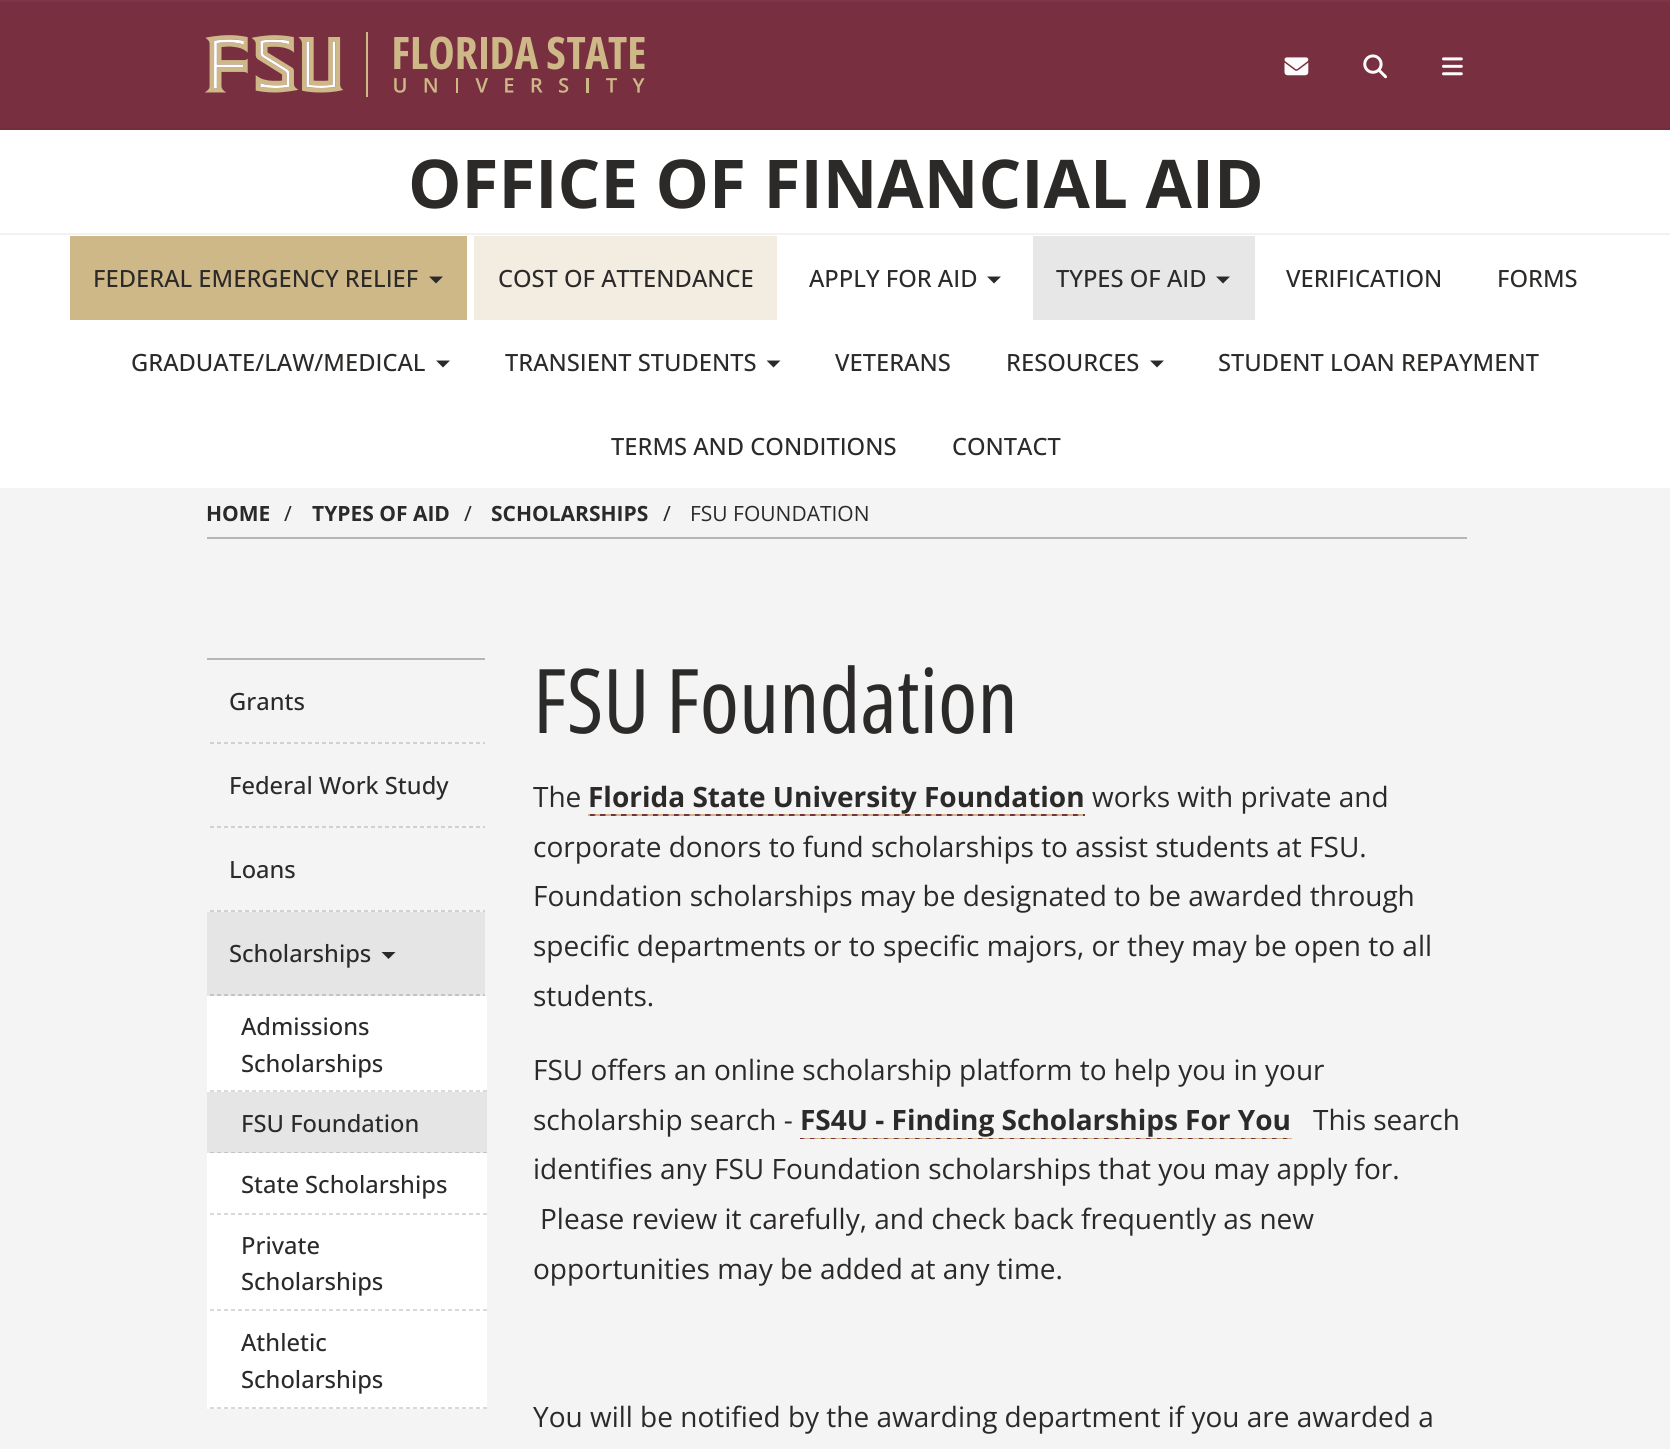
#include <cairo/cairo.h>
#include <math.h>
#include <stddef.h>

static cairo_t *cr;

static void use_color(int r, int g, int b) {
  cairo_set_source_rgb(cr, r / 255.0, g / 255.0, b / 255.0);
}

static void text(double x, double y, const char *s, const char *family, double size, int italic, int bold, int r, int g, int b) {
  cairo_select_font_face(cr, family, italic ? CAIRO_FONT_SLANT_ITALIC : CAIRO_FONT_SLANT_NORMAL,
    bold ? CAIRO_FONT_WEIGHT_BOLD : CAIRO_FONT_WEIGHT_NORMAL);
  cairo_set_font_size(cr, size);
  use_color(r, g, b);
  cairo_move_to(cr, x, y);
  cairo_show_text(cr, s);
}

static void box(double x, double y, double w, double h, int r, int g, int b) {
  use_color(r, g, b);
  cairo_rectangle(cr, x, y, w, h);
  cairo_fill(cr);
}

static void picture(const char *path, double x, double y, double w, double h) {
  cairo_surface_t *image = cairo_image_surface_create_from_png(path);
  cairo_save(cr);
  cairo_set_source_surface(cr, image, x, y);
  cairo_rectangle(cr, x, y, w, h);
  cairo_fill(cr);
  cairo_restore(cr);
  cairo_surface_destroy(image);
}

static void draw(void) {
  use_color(120, 47, 64);
  cairo_paint(cr);
  box(0, 0, 1670, 2, 124, 53, 70);
  box(0, 128, 1670, 2, 114, 45, 61);
  picture("img_01.png", 204, 32, 441, 65);
  picture("img_02.png", 1284, 57, 25, 19);
  picture("img_03.png", 1363, 54, 24, 25);
  picture("img_04.png", 1442, 57, 21, 19);
  box(0, 130, 1670, 103, 255, 255, 255);
  box(0, 233, 1670, 2, 243, 242, 242);
  box(0, 235, 1670, 253, 255, 255, 255);
  box(70, 236, 397, 84, 206, 184, 136);
  use_color(44, 42, 41);
  cairo_new_path(cr);
  cairo_move_to(cr, 429, 276.5);
  cairo_line_to(cr, 443, 276.5);
  cairo_line_to(cr, 436, 283.5);
  cairo_close_path(cr);
  cairo_fill(cr);
  box(474, 236, 303, 84, 243, 237, 225);
  use_color(44, 42, 41);
  cairo_new_path(cr);
  cairo_move_to(cr, 987, 276.5);
  cairo_line_to(cr, 1001, 276.5);
  cairo_line_to(cr, 994, 283.5);
  cairo_close_path(cr);
  cairo_fill(cr);
  box(1033, 236, 222, 84, 231, 231, 231);
  use_color(44, 42, 41);
  cairo_new_path(cr);
  cairo_move_to(cr, 1216, 276.5);
  cairo_line_to(cr, 1230, 276.5);
  cairo_line_to(cr, 1223, 283.5);
  cairo_close_path(cr);
  cairo_fill(cr);
  cairo_new_path(cr);
  cairo_move_to(cr, 436, 360.5);
  cairo_line_to(cr, 450, 360.5);
  cairo_line_to(cr, 443, 367.5);
  cairo_close_path(cr);
  cairo_fill(cr);
  cairo_new_path(cr);
  cairo_move_to(cr, 766.5, 360.5);
  cairo_line_to(cr, 780.5, 360.5);
  cairo_line_to(cr, 773.5, 367.5);
  cairo_close_path(cr);
  cairo_fill(cr);
  cairo_new_path(cr);
  cairo_move_to(cr, 1150, 360.5);
  cairo_line_to(cr, 1164, 360.5);
  cairo_line_to(cr, 1157, 367.5);
  cairo_close_path(cr);
  cairo_fill(cr);
  box(0, 488, 1670, 961, 244, 244, 244);
  box(207, 537, 1260, 2, 181, 181, 180);
  box(207, 658, 278, 2, 181, 181, 180);
  picture("img_05.png", 210, 742, 275, 2);
  picture("img_05.png", 210, 826, 275, 2);
  picture("img_05.png", 210, 910, 275, 2);
  box(207, 912, 278, 84, 229, 229, 229);
  picture("img_06.png", 210, 994, 275, 2);
  use_color(44, 42, 41);
  cairo_new_path(cr);
  cairo_move_to(cr, 381.5, 952);
  cairo_line_to(cr, 395.5, 952);
  cairo_line_to(cr, 388.5, 959);
  cairo_close_path(cr);
  cairo_fill(cr);
  box(207, 996, 280, 96, 255, 255, 255);
  picture("img_07.png", 210, 1090, 277, 2);
  box(207, 1092, 280, 61, 229, 229, 229);
  picture("img_08.png", 210, 1152, 277, 1);
  box(207, 1153, 280, 256, 255, 255, 255);
  picture("img_07.png", 210, 1213, 277, 2);
  picture("img_07.png", 210, 1309, 277, 2);
  picture("img_07.png", 210, 1407, 277, 2);
  picture("img_09.png", 588, 814, 497, 2);
  picture("img_10.png", 800, 1138, 492, 1);
  text(408, 208, "OFFICE OF FINANCIAL AID", "Open Sans", 67.25, 0, 1, 44, 42, 41);
  text(93, 287, "FEDERAL EMERGENCY RELIEF", "Open Sans Medium", 23.75, 0, 0, 44, 42, 41);
  text(498, 287, "COST OF ATTENDANCE", "Open Sans Medium", 23.75, 0, 0, 44, 42, 41);
  text(809, 287, "APPLY FOR AID", "Open Sans Medium", 23.75, 0, 0, 44, 42, 41);
  text(1056, 287, "TYPES OF AID", "Open Sans Medium", 23.75, 0, 0, 44, 42, 41);
  text(1286, 287, "VERIFICATION", "Open Sans Medium", 23.75, 0, 0, 44, 42, 41);
  text(1497, 287, "FORMS", "Open Sans Medium", 23.75, 0, 0, 44, 42, 41);
  text(131, 371, "GRADUATE/LAW/MEDICAL", "Open Sans Medium", 23.75, 0, 0, 44, 42, 41);
  text(505, 371, "TRANSIENT STUDENTS", "Open Sans Medium", 23.75, 0, 0, 44, 42, 41);
  text(835, 371, "VETERANS", "Open Sans Medium", 23.75, 0, 0, 44, 42, 41);
  text(1006, 371, "RESOURCES", "Open Sans Medium", 23.75, 0, 0, 44, 42, 41);
  text(1218, 371, "STUDENT LOAN REPAYMENT", "Open Sans Medium", 23.75, 0, 0, 44, 42, 41);
  text(611, 455, "TERMS AND CONDITIONS", "Open Sans Medium", 23.75, 0, 0, 44, 42, 41);
  text(952, 455, "CONTACT", "Open Sans Medium", 23.75, 0, 0, 44, 42, 41);
  text(206, 521, "HOME", "Open Sans", 21, 0, 1, 44, 42, 41);
  text(284, 521, "/", "Open Sans", 21, 0, 0, 44, 42, 41);
  text(312, 521, "TYPES OF AID", "Open Sans", 21, 0, 1, 44, 42, 41);
  text(464, 521, "/", "Open Sans", 21, 0, 0, 44, 42, 41);
  text(491, 521, "SCHOLARSHIPS", "Open Sans", 21, 0, 1, 44, 42, 41);
  text(663, 521, "/", "Open Sans", 21, 0, 0, 44, 42, 41);
  text(690, 521, "FSU FOUNDATION", "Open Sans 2", 21, 0, 0, 44, 42, 41);
  text(229, 710, "Grants", "Open Sans Medium", 23.75, 0, 0, 44, 42, 41);
  text(229, 794, "Federal Work Study", "Open Sans Medium", 23.75, 0, 0, 44, 42, 41);
  text(229, 878, "Loans", "Open Sans Medium", 23.75, 0, 0, 44, 42, 41);
  text(229, 962, "Scholarships", "Open Sans Medium", 23.75, 0, 0, 44, 42, 41);
  text(241, 1035, "Admissions", "Open Sans Medium", 23.75, 0, 0, 44, 42, 41);
  text(241, 1072, "Scholarships", "Open Sans Medium", 23.75, 0, 0, 44, 42, 41);
  text(241, 1132, "FSU Foundation", "Open Sans Medium", 23.75, 0, 0, 44, 42, 41);
  text(241, 1193, "State Scholarships", "Open Sans Medium", 23.75, 0, 0, 44, 42, 41);
  text(241, 1254, "Private", "Open Sans Medium", 23.75, 0, 0, 44, 42, 41);
  text(241, 1290, "Scholarships", "Open Sans Medium", 23.75, 0, 0, 44, 42, 41);
  text(241, 1351, "Athletic", "Open Sans Medium", 23.75, 0, 0, 44, 42, 41);
  text(241, 1388, "Scholarships", "Open Sans Medium", 23.75, 0, 0, 44, 42, 41);
  text(533, 733, "FSU Foundation", "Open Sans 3", 89.25, 0, 0, 44, 42, 41);
  text(533, 807, "The", "Open Sans 2", 28, 0, 0, 44, 42, 41);
  text(588, 807, "Florida State University Foundation", "Open Sans", 28, 0, 1, 44, 42, 41);
  text(1092, 807, "works with private and", "Open Sans 2", 28, 0, 0, 44, 42, 41);
  text(533, 857, "corporate donors to fund scholarships to assist students at FSU.", "Open Sans 2", 28, 0, 0, 44, 42, 41);
  text(533, 906, "Foundation scholarships may be designated to be awarded through", "Open Sans 2", 28, 0, 0, 44, 42, 41);
  text(533, 956, "specific departments or to specific majors, or they may be open to all", "Open Sans 2", 28, 0, 0, 44, 42, 41);
  text(533, 1006, "students.", "Open Sans 2", 28, 0, 0, 44, 42, 41);
  text(533, 1080, "FSU offers an online scholarship platform to help you in your", "Open Sans 2", 28, 0, 0, 44, 42, 41);
  text(533, 1130, "scholarship search -", "Open Sans 2", 28, 0, 0, 44, 42, 41);
  text(800, 1130, "FS4U - Finding Scholarships For You", "Open Sans", 28, 0, 1, 44, 42, 41);
  text(1313, 1130, "This search", "Open Sans 2", 28, 0, 0, 44, 42, 41);
  text(533, 1179, "identifies any FSU Foundation scholarships that you may apply for.", "Open Sans 2", 28, 0, 0, 44, 42, 41);
  text(540, 1229, "Please review it carefully, and check back frequently as new", "Open Sans 2", 28, 0, 0, 44, 42, 41);
  text(533, 1279, "opportunities may be added at any time.", "Open Sans 2", 28, 0, 0, 44, 42, 41);
  text(533, 1427, "You will be notified by the awarding department if you are awarded a", "Open Sans 2", 28, 0, 0, 44, 42, 41);
}

int main(void) {
  cairo_surface_t *surface = cairo_image_surface_create(CAIRO_FORMAT_RGB24, 1670, 1449);
  cr = cairo_create(surface);
  cairo_font_options_t *options = cairo_font_options_create();
  cairo_font_options_set_hint_metrics(options, CAIRO_HINT_METRICS_OFF);
  cairo_font_options_set_hint_style(options, CAIRO_HINT_STYLE_NONE);
  cairo_set_font_options(cr, options);
  cairo_set_miter_limit(cr, 4);
  draw();
  cairo_surface_write_to_png(surface, "out.png");
  cairo_font_options_destroy(options);
  cairo_destroy(cr);
  cairo_surface_destroy(surface);
  return 0;
}
